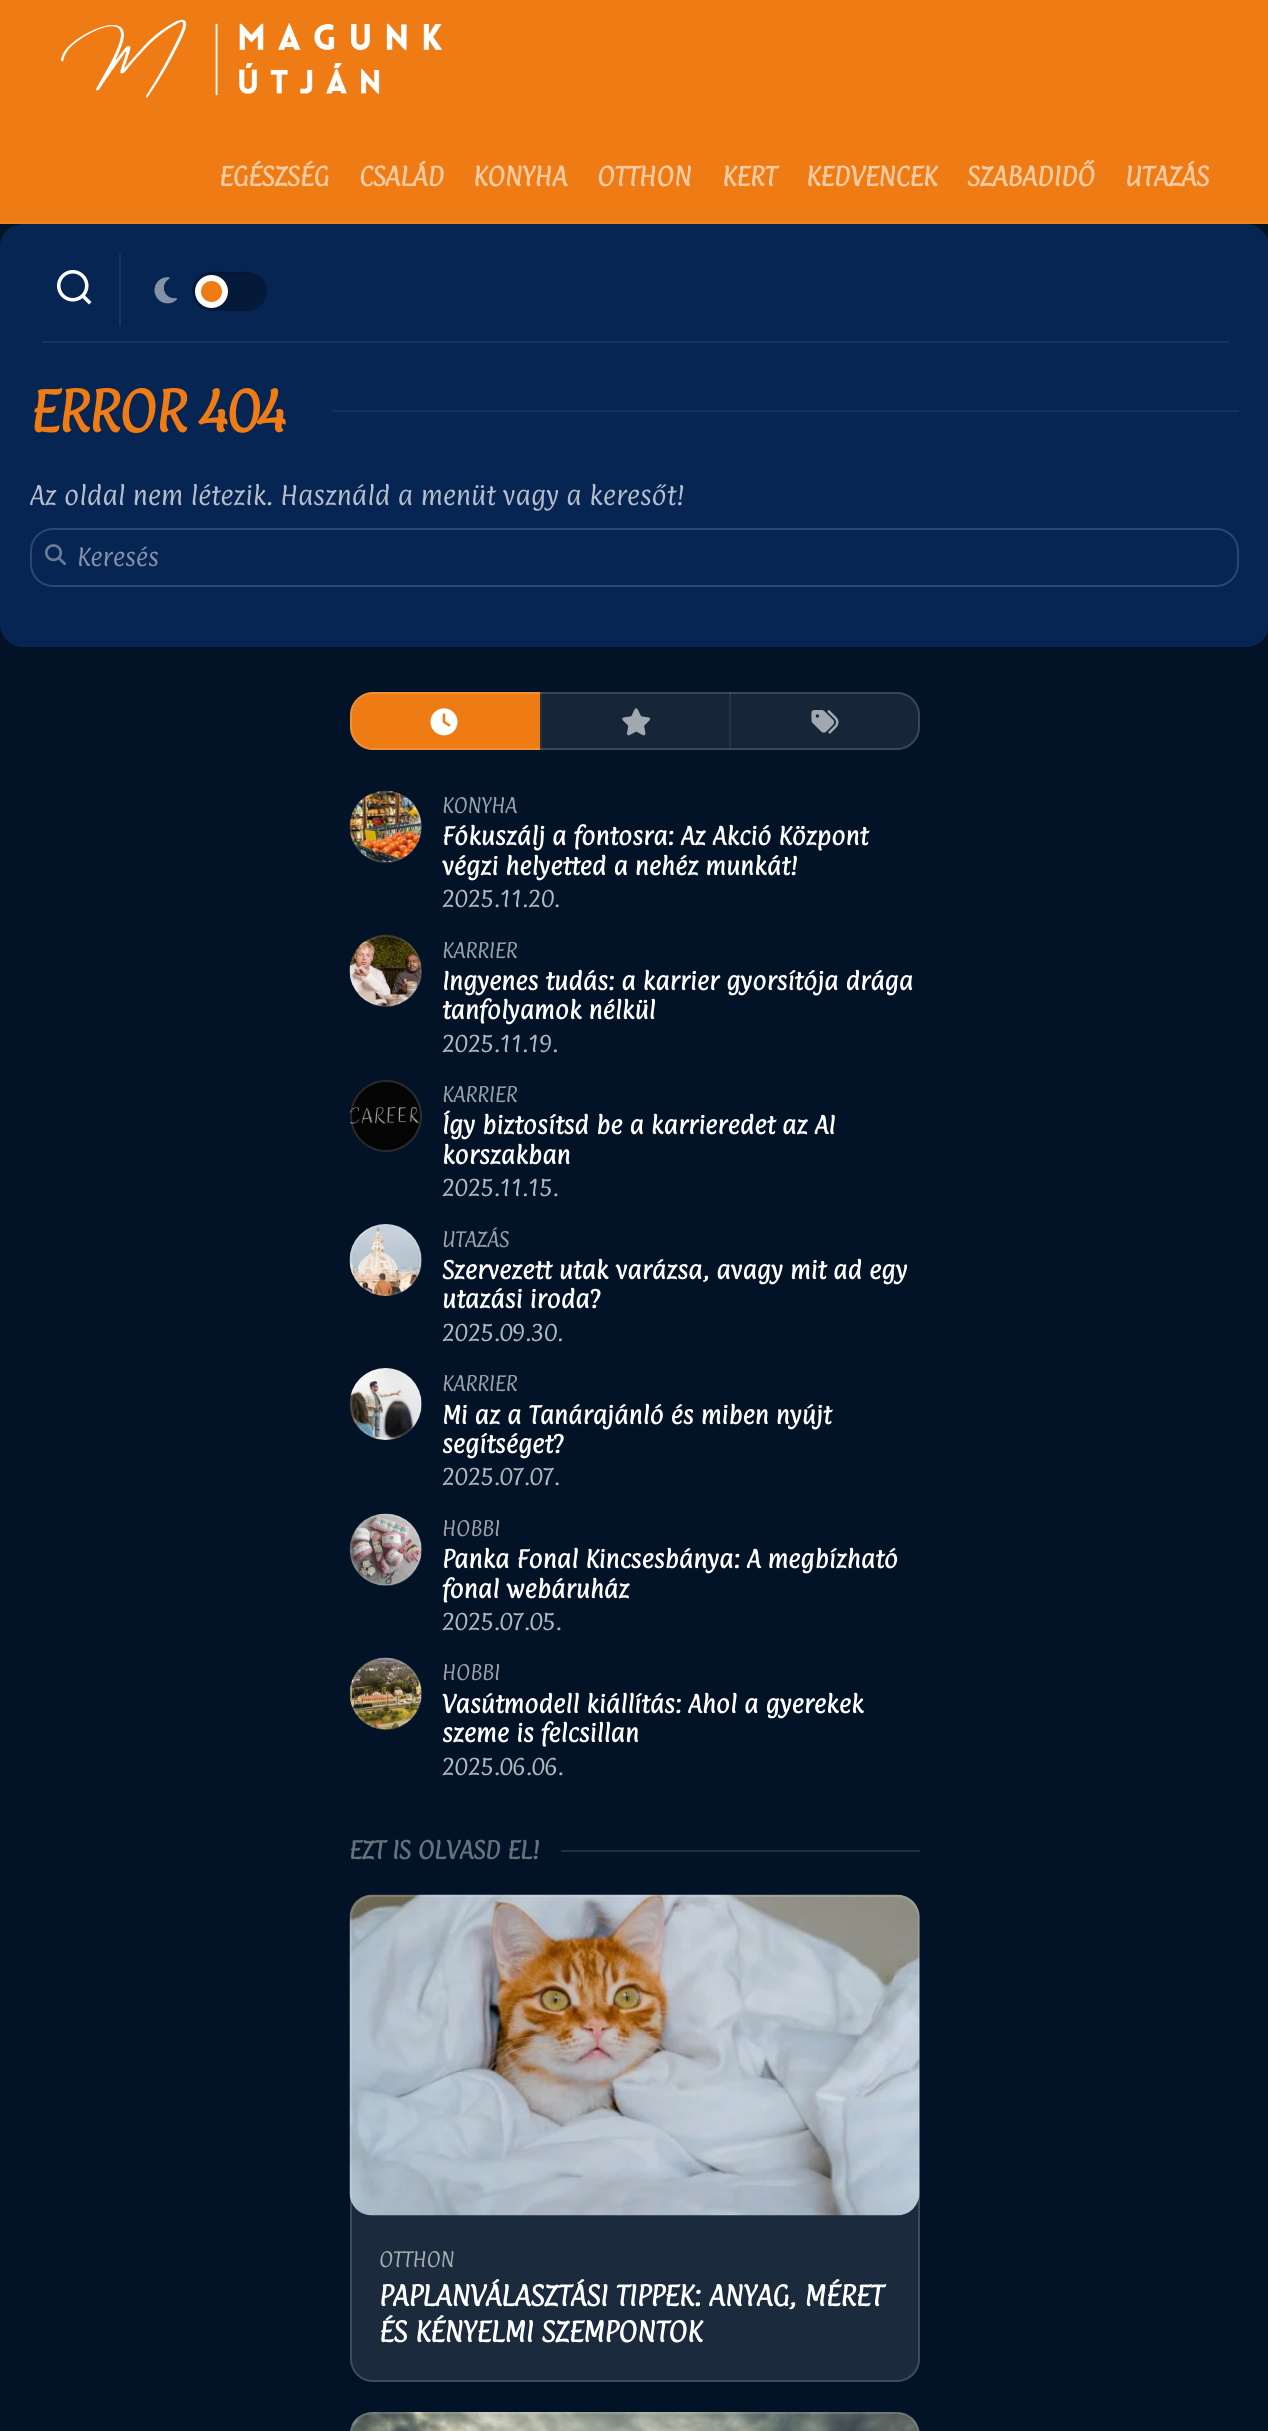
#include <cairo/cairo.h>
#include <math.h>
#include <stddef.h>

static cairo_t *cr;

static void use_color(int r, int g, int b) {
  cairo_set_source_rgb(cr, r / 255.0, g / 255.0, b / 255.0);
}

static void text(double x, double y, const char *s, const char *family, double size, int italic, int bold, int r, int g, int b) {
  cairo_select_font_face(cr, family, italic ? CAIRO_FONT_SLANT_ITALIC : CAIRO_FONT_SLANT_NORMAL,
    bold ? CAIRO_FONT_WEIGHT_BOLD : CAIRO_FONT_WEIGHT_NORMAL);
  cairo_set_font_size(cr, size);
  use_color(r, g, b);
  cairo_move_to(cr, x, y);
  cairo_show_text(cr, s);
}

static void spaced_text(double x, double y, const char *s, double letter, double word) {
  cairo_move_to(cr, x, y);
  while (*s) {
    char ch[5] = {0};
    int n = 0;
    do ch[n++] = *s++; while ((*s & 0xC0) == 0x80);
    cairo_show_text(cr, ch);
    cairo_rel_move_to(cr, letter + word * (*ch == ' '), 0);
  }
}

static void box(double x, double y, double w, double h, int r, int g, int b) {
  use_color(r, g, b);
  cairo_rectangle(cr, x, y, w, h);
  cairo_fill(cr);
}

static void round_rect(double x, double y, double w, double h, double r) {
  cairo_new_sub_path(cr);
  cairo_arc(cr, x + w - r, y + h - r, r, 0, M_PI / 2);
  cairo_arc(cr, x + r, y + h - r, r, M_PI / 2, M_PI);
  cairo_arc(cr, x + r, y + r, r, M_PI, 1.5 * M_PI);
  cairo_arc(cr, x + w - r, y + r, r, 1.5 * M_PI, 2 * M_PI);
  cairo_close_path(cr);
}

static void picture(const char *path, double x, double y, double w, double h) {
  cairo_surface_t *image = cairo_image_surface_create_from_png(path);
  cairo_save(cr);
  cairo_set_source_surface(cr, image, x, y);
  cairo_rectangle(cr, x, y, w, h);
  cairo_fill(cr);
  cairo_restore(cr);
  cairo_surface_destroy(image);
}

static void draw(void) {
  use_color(2, 19, 39);
  cairo_paint(cr);
  box(0, 0, 1268, 222, 238, 123, 20);
  box(0, 222, 1268, 2, 239, 131, 34);
  picture("img_01.png", 60, 19, 383, 79);
  use_color(7, 37, 83);
  round_rect(0, 224, 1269, 423, 23);
  cairo_fill(cr);
  box(42, 341, 1187, 2, 22, 50, 93);
  box(119, 254, 2, 72, 22, 50, 93);
  picture("img_02.png", 57, 270, 35, 35);
  picture("img_03.png", 154, 277, 23, 27);
  use_color(5, 26, 58);
  round_rect(192, 272, 75, 39, 19.5);
  cairo_fill(cr);
  cairo_set_source_rgba(cr, 0, 0, 0, 0.2);
  cairo_new_path(cr);
  cairo_move_to(cr, 212, 273);
  cairo_line_to(cr, 248, 273);
  cairo_curve_to(cr, 258, 273, 267, 282, 267, 292);
  cairo_curve_to(cr, 267, 288, 266, 284, 264, 281);
  cairo_curve_to(cr, 256, 269, 241, 272, 230, 272);
  cairo_curve_to(cr, 218, 272, 203, 269, 195, 281);
  cairo_curve_to(cr, 193, 284, 192, 288, 192, 292);
  cairo_curve_to(cr, 192, 282, 201, 273, 212, 273);
  cairo_close_path(cr);
  cairo_fill(cr);
  use_color(238, 123, 20);
  cairo_arc(cr, 211.5, 291.5, 13.5, 0, 2 * M_PI);
  cairo_fill_preserve(cr);
  use_color(255, 255, 255);
  cairo_set_line_width(cr, 6);
  cairo_stroke(cr);
  box(332, 410, 907, 2, 22, 50, 93);
  round_rect(31, 529, 1207, 57, 22);
  use_color(44, 70, 109);
  cairo_set_line_width(cr, 2);
  cairo_stroke(cr);
  picture("img_04.png", 45, 544, 21, 22);
  use_color(22, 38, 56);
  round_rect(350, 692, 570, 58, 23);
  cairo_fill(cr);
  use_color(238, 123, 20);
  cairo_new_path(cr);
  cairo_move_to(cr, 373, 692);
  cairo_line_to(cr, 540, 692);
  cairo_line_to(cr, 540, 750);
  cairo_line_to(cr, 373, 750);
  cairo_curve_to(cr, 360.5, 750, 350, 739.5, 350, 727);
  cairo_line_to(cr, 350, 715);
  cairo_curve_to(cr, 350, 702.5, 360.5, 692, 373, 692);
  cairo_close_path(cr);
  cairo_fill(cr);
  picture("img_05.png", 430, 708, 28, 28);
  box(540, 692, 2, 58, 36, 51, 68);
  picture("img_06.png", 622, 708, 29, 28);
  box(729, 692, 2, 58, 36, 51, 68);
  picture("img_07.png", 811, 710, 28, 24);
  round_rect(351, 693, 568, 56, 22);
  cairo_set_source_rgba(cr, 1, 1, 1, 0.15);
  cairo_stroke(cr);
  picture("img_08.png", 349, 790, 73, 73);
  cairo_arc(cr, 386, 827, 35, 0, 2 * M_PI);
  cairo_stroke(cr);
  picture("img_09.png", 349, 934, 73, 73);
  cairo_arc(cr, 386, 971, 35, 0, 2 * M_PI);
  cairo_stroke(cr);
  picture("img_10.png", 349, 1080, 73, 72);
  cairo_arc(cr, 386, 1116, 35, 0, 2 * M_PI);
  cairo_stroke(cr);
  picture("img_11.png", 349, 1224, 73, 72);
  cairo_arc(cr, 386, 1260, 35, 0, 2 * M_PI);
  cairo_stroke(cr);
  picture("img_12.png", 349, 1368, 73, 72);
  cairo_arc(cr, 386, 1404, 35, 0, 2 * M_PI);
  cairo_stroke(cr);
  picture("img_13.png", 349, 1513, 73, 73);
  cairo_arc(cr, 386, 1550, 35, 0, 2 * M_PI);
  cairo_stroke(cr);
  picture("img_14.png", 349, 1657, 73, 73);
  cairo_arc(cr, 386, 1694, 35, 0, 2 * M_PI);
  cairo_stroke(cr);
  box(561, 1850, 359, 2, 32, 47, 65);
  use_color(27, 43, 61);
  round_rect(350, 1895, 570, 487, 23);
  cairo_fill(cr);
  picture("img_15.png", 349, 1894, 571, 322);
  round_rect(351, 1896, 568, 485, 22);
  cairo_set_source_rgba(cr, 1, 1, 1, 0.15);
  cairo_stroke(cr);
  use_color(27, 43, 61);
  round_rect(350, 2412, 570, 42, 23);
  cairo_fill(cr);
  picture("img_16.png", 350, 2412, 569, 19);
  round_rect(351, 2413, 568, 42, 22);
  cairo_set_source_rgba(cr, 1, 1, 1, 0.15);
  cairo_stroke(cr);
  text(219, 186, "EGÉSZSÉG", "Paprika", 22.5, 0, 1, 248, 202, 161);
  text(359, 186, "CSALÁD", "Paprika", 22.5, 0, 1, 248, 202, 161);
  text(473, 186, "KONYHA", "Paprika", 22.5, 0, 1, 248, 202, 161);
  text(597, 186, "OTTHON", "Paprika", 22.5, 0, 1, 248, 202, 161);
  text(722, 186, "KERT", "Paprika", 22.5, 0, 1, 248, 202, 161);
  text(806, 186, "KEDVENCEK", "Paprika", 22.5, 0, 1, 248, 202, 161);
  text(967, 186, "SZABADIDŐ", "Paprika", 22.5, 0, 1, 248, 202, 161);
  text(1125, 186, "UTAZÁS", "Paprika", 22.5, 0, 1, 248, 202, 161);
  cairo_set_font_size(cr, 48);
  use_color(238, 123, 20);
  spaced_text(30, 432, "ERROR 404", -1, 0);
  text(30, 505, "Az oldal nem létezik. Használd a menüt vagy a keresőt!", "Paprika", 22.5, 0, 0, 181, 190, 203);
  text(77, 566, "Keresés", "Paprika", 21, 0, 0, 131, 146, 169);
  text(442, 813, "KONYHA", "Paprika", 18, 0, 0, 154, 161, 169);
  text(442, 845, "Fókuszálj a fontosra: Az Akció Központ", "Paprika", 21, 0, 1, 255, 255, 255);
  text(442, 875, "végzi helyetted a nehéz munkát!", "Paprika", 21, 0, 1, 255, 255, 255);
  text(442, 907, "2025.11.20.", "Paprika", 19.5, 0, 0, 179, 184, 190);
  text(442, 958, "KARRIER", "Paprika", 18, 0, 0, 154, 161, 169);
  text(442, 990, "Ingyenes tudás: a karrier gyorsítója drága", "Paprika", 21, 0, 1, 255, 255, 255);
  text(442, 1019, "tanfolyamok nélkül", "Paprika", 21, 0, 1, 255, 255, 255);
  text(442, 1052, "2025.11.19.", "Paprika", 19.5, 0, 0, 179, 184, 190);
  text(442, 1102, "KARRIER", "Paprika", 18, 0, 0, 154, 161, 169);
  text(442, 1134, "Így biztosítsd be a karrieredet az AI", "Paprika", 21, 0, 1, 255, 255, 255);
  text(442, 1164, "korszakban", "Paprika", 21, 0, 1, 255, 255, 255);
  text(442, 1196, "2025.11.15.", "Paprika", 19.5, 0, 0, 179, 184, 190);
  text(442, 1247, "UTAZÁS", "Paprika", 18, 0, 0, 154, 161, 169);
  text(442, 1279, "Szervezett utak varázsa, avagy mit ad egy", "Paprika", 21, 0, 1, 255, 255, 255);
  text(442, 1308, "utazási iroda?", "Paprika", 21, 0, 1, 255, 255, 255);
  text(442, 1341, "2025.09.30.", "Paprika", 19.5, 0, 0, 179, 184, 190);
  text(442, 1391, "KARRIER", "Paprika", 18, 0, 0, 154, 161, 169);
  text(442, 1424, "Mi az a Tanárajánló és miben nyújt", "Paprika", 21, 0, 1, 255, 255, 255);
  text(442, 1453, "segítséget?", "Paprika", 21, 0, 1, 255, 255, 255);
  text(442, 1485, "2025.07.07.", "Paprika", 19.5, 0, 0, 179, 184, 190);
  text(442, 1536, "HOBBI", "Paprika", 18, 0, 0, 154, 161, 169);
  text(442, 1568, "Panka Fonal Kincsesbánya: A megbízható", "Paprika", 21, 0, 1, 255, 255, 255);
  text(442, 1598, "fonal webáruház", "Paprika", 21, 0, 1, 255, 255, 255);
  text(442, 1630, "2025.07.05.", "Paprika", 19.5, 0, 0, 179, 184, 190);
  text(442, 1680, "HOBBI", "Paprika", 18, 0, 0, 154, 161, 169);
  text(442, 1713, "Vasútmodell kiállítás: Ahol a gyerekek", "Paprika", 21, 0, 1, 255, 255, 255);
  text(442, 1742, "szeme is felcsillan", "Paprika", 21, 0, 1, 255, 255, 255);
  text(442, 1775, "2025.06.06.", "Paprika", 19.5, 0, 0, 179, 184, 190);
  text(349, 1859, "EZT IS OLVASD EL!", "Paprika", 21, 0, 1, 103, 113, 125);
  text(379, 2267, "OTTHON", "Paprika", 18, 0, 0, 164, 170, 177);
  text(379, 2306, "PAPLANVÁLASZTÁSI TIPPEK: ANYAG, MÉRET", "Paprika", 24, 0, 1, 255, 255, 255);
  text(379, 2342, "ÉS KÉNYELMI SZEMPONTOK", "Paprika", 24, 0, 1, 255, 255, 255);
}

int main(void) {
  cairo_surface_t *surface = cairo_image_surface_create(CAIRO_FORMAT_RGB24, 1268, 2431);
  cr = cairo_create(surface);
  cairo_font_options_t *options = cairo_font_options_create();
  cairo_font_options_set_hint_metrics(options, CAIRO_HINT_METRICS_OFF);
  cairo_font_options_set_hint_style(options, CAIRO_HINT_STYLE_NONE);
  cairo_set_font_options(cr, options);
  cairo_set_miter_limit(cr, 4);
  draw();
  cairo_surface_write_to_png(surface, "out.png");
  cairo_font_options_destroy(options);
  cairo_destroy(cr);
  cairo_surface_destroy(surface);
  return 0;
}
